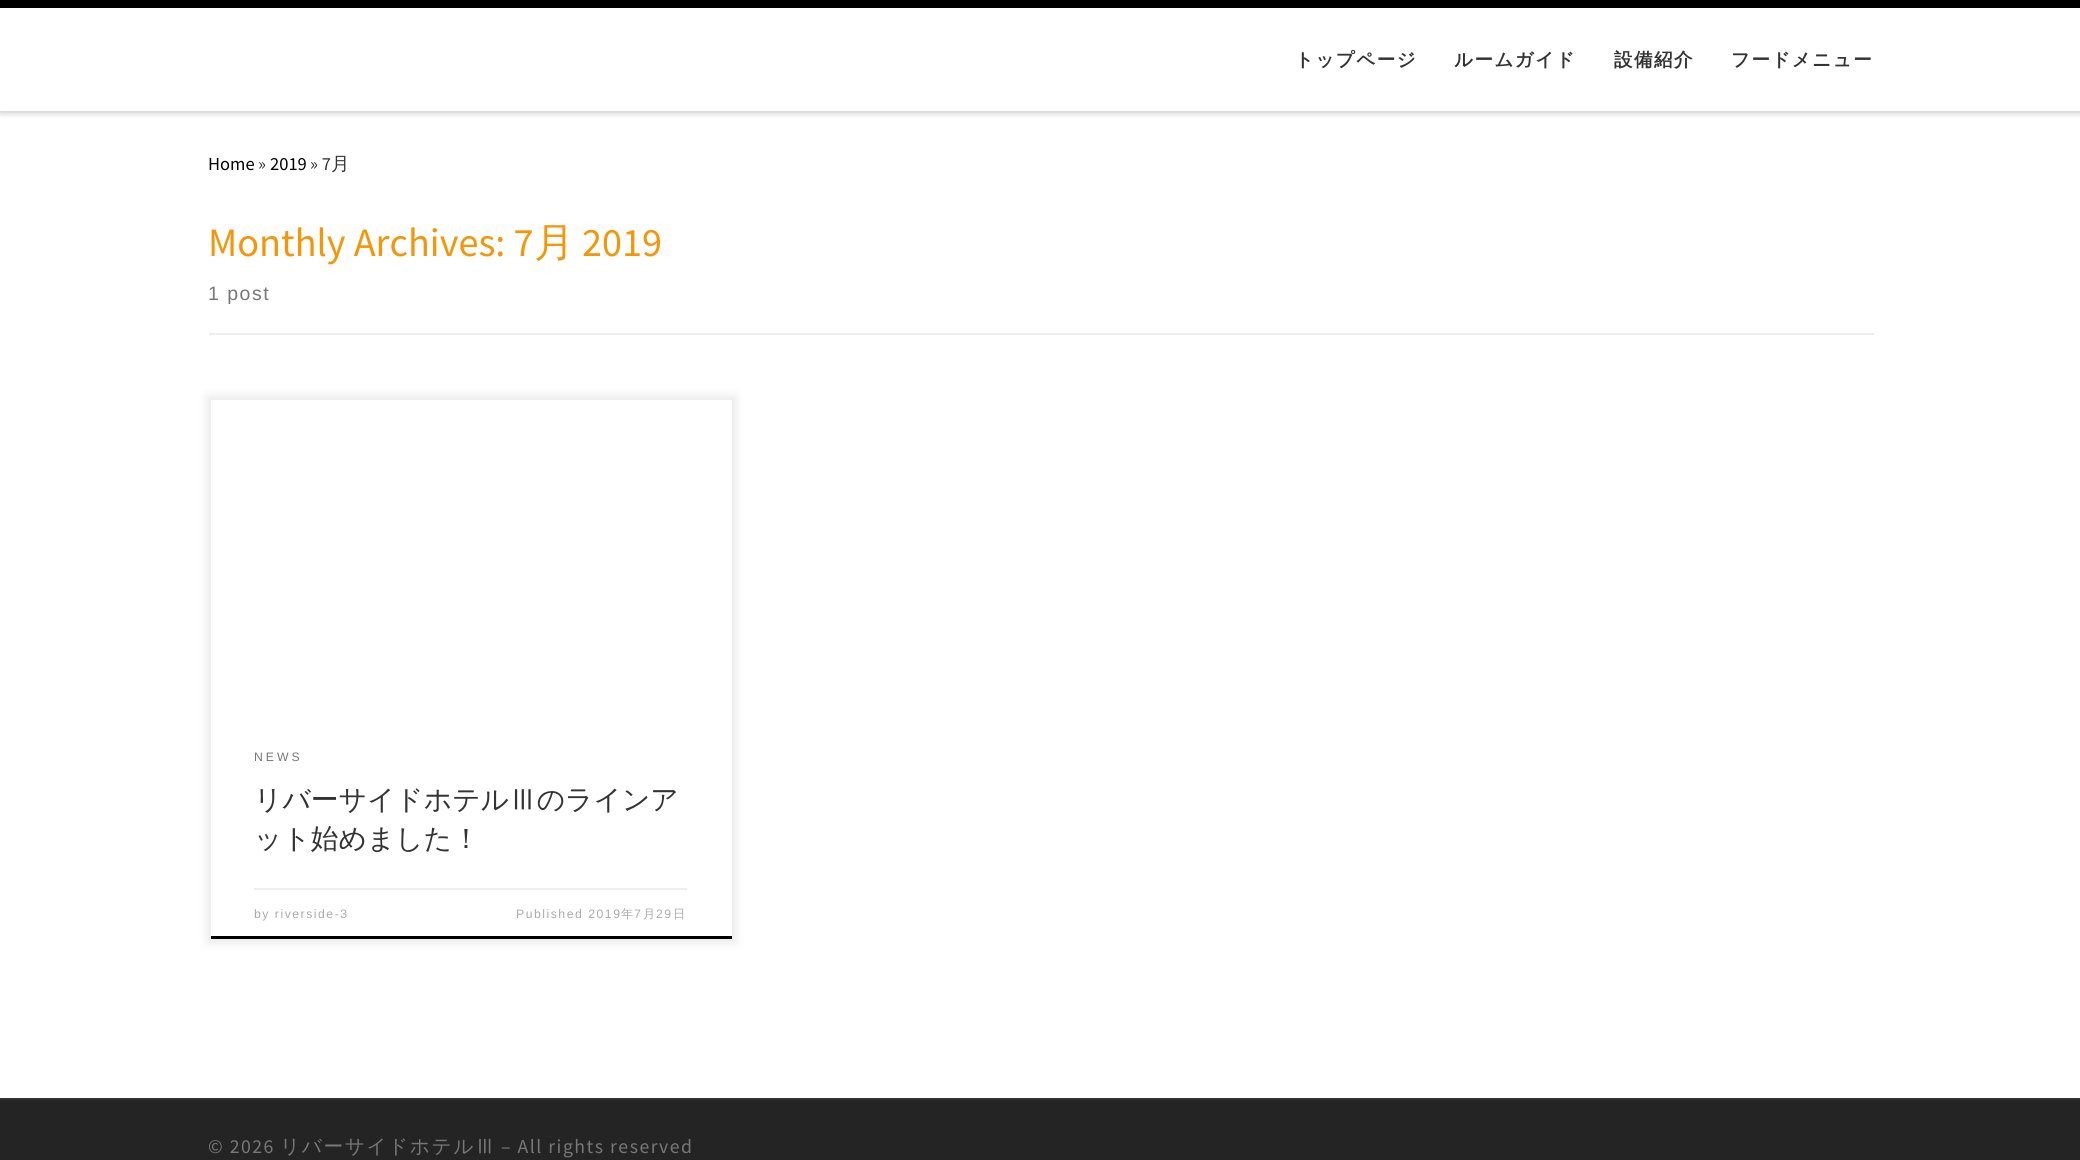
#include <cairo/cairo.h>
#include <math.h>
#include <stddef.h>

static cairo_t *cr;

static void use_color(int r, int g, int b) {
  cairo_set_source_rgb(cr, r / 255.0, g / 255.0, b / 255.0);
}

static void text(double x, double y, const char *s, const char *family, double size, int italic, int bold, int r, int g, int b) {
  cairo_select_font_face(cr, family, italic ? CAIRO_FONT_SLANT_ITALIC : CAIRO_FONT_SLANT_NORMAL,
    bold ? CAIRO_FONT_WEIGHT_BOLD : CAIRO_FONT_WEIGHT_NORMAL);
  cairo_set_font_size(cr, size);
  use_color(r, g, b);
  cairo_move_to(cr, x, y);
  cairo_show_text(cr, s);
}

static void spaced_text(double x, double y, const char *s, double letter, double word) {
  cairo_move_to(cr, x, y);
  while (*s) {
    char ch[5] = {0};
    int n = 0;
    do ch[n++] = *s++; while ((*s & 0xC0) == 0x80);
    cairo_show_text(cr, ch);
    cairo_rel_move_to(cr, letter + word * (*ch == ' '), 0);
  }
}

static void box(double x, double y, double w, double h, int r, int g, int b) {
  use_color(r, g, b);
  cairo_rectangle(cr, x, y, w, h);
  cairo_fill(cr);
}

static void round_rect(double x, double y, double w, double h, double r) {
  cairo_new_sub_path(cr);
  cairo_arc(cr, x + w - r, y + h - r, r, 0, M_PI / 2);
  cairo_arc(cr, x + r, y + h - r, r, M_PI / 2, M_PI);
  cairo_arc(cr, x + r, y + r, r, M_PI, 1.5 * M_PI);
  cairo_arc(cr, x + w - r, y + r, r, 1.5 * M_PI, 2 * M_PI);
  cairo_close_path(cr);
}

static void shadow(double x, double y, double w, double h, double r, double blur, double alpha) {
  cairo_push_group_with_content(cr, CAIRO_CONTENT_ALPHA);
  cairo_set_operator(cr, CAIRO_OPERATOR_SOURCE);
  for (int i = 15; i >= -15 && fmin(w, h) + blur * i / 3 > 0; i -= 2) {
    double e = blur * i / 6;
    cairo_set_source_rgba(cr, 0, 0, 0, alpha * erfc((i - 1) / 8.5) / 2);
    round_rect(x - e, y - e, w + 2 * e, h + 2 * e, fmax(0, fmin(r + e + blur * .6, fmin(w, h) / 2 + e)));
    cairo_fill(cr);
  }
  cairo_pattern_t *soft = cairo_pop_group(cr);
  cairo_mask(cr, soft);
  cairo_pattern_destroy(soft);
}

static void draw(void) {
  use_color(255, 255, 255);
  cairo_paint(cr);
  use_color(102, 102, 102);
  shadow(0, 3, 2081, 113, 0, 1.5, 0.08);
  box(0, 8, 2080, 103, 255, 255, 255);
  box(0, 0, 2080, 8, 0, 0, 0);
  use_color(239, 239, 239);
  cairo_new_path(cr);
  cairo_move_to(cr, 0, 111);
  cairo_line_to(cr, 0, 113);
  cairo_line_to(cr, 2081, 113);
  cairo_line_to(cr, 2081, 9);
  cairo_line_to(cr, 2080, 9);
  cairo_line_to(cr, 2080, 111);
  cairo_close_path(cr);
  cairo_fill(cr);
  cairo_save(cr);
  cairo_set_fill_rule(cr, CAIRO_FILL_RULE_EVEN_ODD);
  cairo_new_path(cr);
  cairo_move_to(cr, 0, 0);
  cairo_line_to(cr, 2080, 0);
  cairo_line_to(cr, 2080, 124);
  cairo_line_to(cr, 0, 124);
  cairo_close_path(cr);
  cairo_move_to(cr, 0, 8);
  cairo_line_to(cr, 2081, 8);
  cairo_line_to(cr, 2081, 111);
  cairo_line_to(cr, 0, 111);
  cairo_close_path(cr);
  cairo_clip(cr);
  use_color(0, 0, 0);
  shadow(0, 8, 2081, 103, 0, 4, 0.2);
  cairo_restore(cr);
  box(209, 333, 1665, 2, 236, 238, 239);
  use_color(0, 0, 0);
  shadow(206, 395, 531, 549, 0, 4.5, 0.07);
  box(211, 400, 521, 536, 255, 255, 255);
  box(209, 936, 525, 3, 0, 0, 0);
  cairo_rectangle(cr, 210, 399, 523, 541);
  use_color(239, 239, 239);
  cairo_stroke(cr);
  box(254, 888, 433, 2, 236, 238, 239);
  box(0, 1098, 2080, 2, 49, 49, 49);
  box(0, 1100, 2080, 60, 36, 36, 36);
  cairo_select_font_face(cr, "WenQuanYi Zen Hei", CAIRO_FONT_SLANT_NORMAL, CAIRO_FONT_WEIGHT_BOLD);
  cairo_set_font_size(cr, 18.5);
  use_color(51, 51, 51);
  spaced_text(1295, 66, "トップページ", 1.5, 0);
  spaced_text(1454, 66, "ルームガイド", 1.5, 0);
  spaced_text(1614, 66, "設備紹介", 1.5, 0);
  spaced_text(1731, 66, "フードメニュー", 1.5, 0);
  text(208, 170, "Home", "Source Sans Pro", 18.5, 0, 0, 0, 0, 0);
  text(258, 170, "»", "Source Sans Pro", 18.5, 0, 0, 51, 51, 51);
  text(270, 170, "2019", "Source Sans Pro", 18.5, 0, 0, 0, 0, 0);
  text(310, 170, "» 7", "Source Sans Pro", 18.5, 0, 0, 51, 51, 51);
  text(331, 170, "月", "WenQuanYi Zen Hei Medium", 18.5, 0, 0, 51, 51, 51);
  text(208, 256, "Monthly Archives: 7", "Source Sans Pro", 40.25, 0, 0, 243, 150, 10);
  text(534, 256, "月", "WenQuanYi Zen Hei Medium", 40.25, 0, 0, 243, 150, 10);
  text(582, 256, "2019", "Source Sans Pro", 40.25, 0, 0, 243, 150, 10);
  cairo_select_font_face(cr, "Liberation Sans", CAIRO_FONT_SLANT_NORMAL, CAIRO_FONT_WEIGHT_NORMAL);
  cairo_set_font_size(cr, 19.5);
  use_color(119, 119, 119);
  spaced_text(208, 300, "1 post", 1.5, 0);
  cairo_set_font_size(cr, 12.25);
  spaced_text(254, 761, "NEWS", 3, 0);
  text(254, 809, "リバーサイドホテルⅢのラインア", "WenQuanYi Zen Hei Medium", 27.75, 0, 0, 51, 51, 51);
  text(254, 848, "ット始めました！", "WenQuanYi Zen Hei Medium", 27.75, 0, 0, 51, 51, 51);
  cairo_select_font_face(cr, "Liberation Sans", CAIRO_FONT_SLANT_NORMAL, CAIRO_FONT_WEIGHT_NORMAL);
  cairo_set_font_size(cr, 12.25);
  use_color(170, 170, 170);
  spaced_text(254, 918, "by riverside-3", 1.5, 0);
  spaced_text(516, 918, "Published 2019", 1.5, 0);
  cairo_select_font_face(cr, "WenQuanYi Zen Hei Medium", CAIRO_FONT_SLANT_NORMAL, CAIRO_FONT_WEIGHT_NORMAL);
  spaced_text(621, 918, "年", 1.5, 0);
  cairo_select_font_face(cr, "Liberation Sans", CAIRO_FONT_SLANT_NORMAL, CAIRO_FONT_WEIGHT_NORMAL);
  spaced_text(634, 918, "7", 1.5, 0);
  cairo_select_font_face(cr, "WenQuanYi Zen Hei Medium", CAIRO_FONT_SLANT_NORMAL, CAIRO_FONT_WEIGHT_NORMAL);
  spaced_text(643, 918, "月", 1.5, 0);
  cairo_select_font_face(cr, "Liberation Sans", CAIRO_FONT_SLANT_NORMAL, CAIRO_FONT_WEIGHT_NORMAL);
  spaced_text(656, 918, "29", 1.5, 0);
  cairo_select_font_face(cr, "WenQuanYi Zen Hei Medium", CAIRO_FONT_SLANT_NORMAL, CAIRO_FONT_WEIGHT_NORMAL);
  spaced_text(673, 918, "日", 1.5, 0);
  cairo_select_font_face(cr, "Source Sans Pro", CAIRO_FONT_SLANT_NORMAL, CAIRO_FONT_WEIGHT_NORMAL);
  cairo_set_font_size(cr, 19.75);
  use_color(119, 119, 119);
  spaced_text(208, 1153, "© 2026", 1.5, 0);
  cairo_select_font_face(cr, "WenQuanYi Zen Hei Medium", CAIRO_FONT_SLANT_NORMAL, CAIRO_FONT_WEIGHT_NORMAL);
  spaced_text(280, 1153, "リバーサイドホテルⅢ", 1.5, 0);
  cairo_select_font_face(cr, "Source Sans Pro", CAIRO_FONT_SLANT_NORMAL, CAIRO_FONT_WEIGHT_NORMAL);
  spaced_text(501, 1153, "– All rights reserved", 1.5, 0);
}

int main(void) {
  cairo_surface_t *surface = cairo_image_surface_create(CAIRO_FORMAT_RGB24, 2080, 1160);
  cr = cairo_create(surface);
  cairo_font_options_t *options = cairo_font_options_create();
  cairo_font_options_set_hint_metrics(options, CAIRO_HINT_METRICS_OFF);
  cairo_font_options_set_hint_style(options, CAIRO_HINT_STYLE_NONE);
  cairo_set_font_options(cr, options);
  cairo_set_miter_limit(cr, 4);
  draw();
  cairo_surface_write_to_png(surface, "out.png");
  cairo_font_options_destroy(options);
  cairo_destroy(cr);
  cairo_surface_destroy(surface);
  return 0;
}
